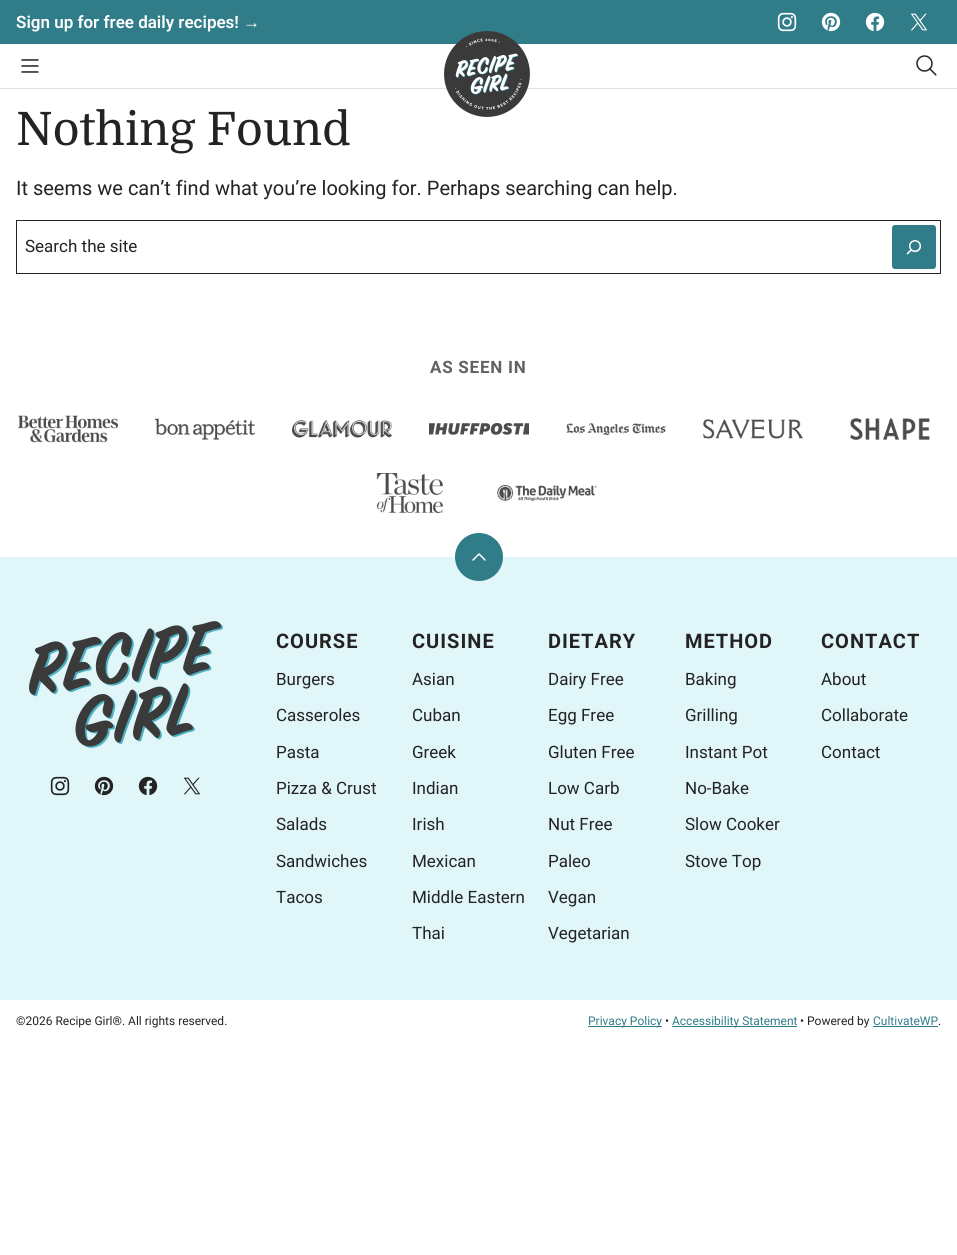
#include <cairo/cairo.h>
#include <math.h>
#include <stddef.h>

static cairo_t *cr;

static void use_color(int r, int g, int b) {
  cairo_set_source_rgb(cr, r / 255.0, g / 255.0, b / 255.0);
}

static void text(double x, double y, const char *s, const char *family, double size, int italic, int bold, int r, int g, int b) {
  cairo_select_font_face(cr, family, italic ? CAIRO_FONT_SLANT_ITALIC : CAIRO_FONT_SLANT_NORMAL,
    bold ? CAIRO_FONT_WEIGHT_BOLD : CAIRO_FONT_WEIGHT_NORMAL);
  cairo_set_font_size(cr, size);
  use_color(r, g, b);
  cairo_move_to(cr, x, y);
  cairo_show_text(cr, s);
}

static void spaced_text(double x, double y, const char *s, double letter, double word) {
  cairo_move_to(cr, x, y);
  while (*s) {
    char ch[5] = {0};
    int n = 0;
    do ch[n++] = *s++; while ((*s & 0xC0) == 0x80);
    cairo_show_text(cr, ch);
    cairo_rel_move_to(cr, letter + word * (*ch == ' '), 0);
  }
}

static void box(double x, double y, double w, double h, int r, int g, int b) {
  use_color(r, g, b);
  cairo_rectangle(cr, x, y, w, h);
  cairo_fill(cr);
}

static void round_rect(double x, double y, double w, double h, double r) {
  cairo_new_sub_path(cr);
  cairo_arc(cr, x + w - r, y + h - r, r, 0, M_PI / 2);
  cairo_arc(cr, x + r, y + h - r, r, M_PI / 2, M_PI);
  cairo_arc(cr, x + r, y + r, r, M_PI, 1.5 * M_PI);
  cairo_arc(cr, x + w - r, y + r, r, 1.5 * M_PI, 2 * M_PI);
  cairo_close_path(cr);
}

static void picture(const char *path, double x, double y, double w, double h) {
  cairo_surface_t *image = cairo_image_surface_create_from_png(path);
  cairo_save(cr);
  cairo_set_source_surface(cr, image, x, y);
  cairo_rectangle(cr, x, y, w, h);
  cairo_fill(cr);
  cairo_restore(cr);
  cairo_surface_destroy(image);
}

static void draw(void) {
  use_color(255, 255, 255);
  cairo_paint(cr);
  box(0, 0, 957, 44, 48, 124, 136);
  picture("img_01.png", 777, 12, 20, 20);
  picture("img_02.png", 821, 12, 20, 20);
  picture("img_03.png", 865, 12, 20, 20);
  picture("img_04.png", 910, 13, 18, 18);
  box(0, 88, 957, 1, 224, 224, 224);
  picture("img_05.png", 21, 59, 18, 14);
  picture("img_06.png", 444, 31, 86, 86);
  picture("img_07.png", 916, 55, 21, 21);
  cairo_rectangle(cr, 16.5, 220.5, 924, 53);
  use_color(35, 35, 35);
  cairo_set_line_width(cr, 1);
  cairo_stroke(cr);
  use_color(48, 124, 136);
  round_rect(892, 225, 44, 44, 3);
  cairo_fill(cr);
  picture("img_08.png", 906, 240, 16, 15);
  picture("img_09.png", 18, 415, 100, 28);
  picture("img_10.png", 155, 418, 100, 22);
  picture("img_11.png", 292, 420, 100, 18);
  picture("img_12.png", 429, 423, 100, 12);
  picture("img_13.png", 566, 423, 100, 12);
  picture("img_14.png", 703, 419, 100, 20);
  picture("img_15.png", 850, 418, 80, 22);
  picture("img_16.png", 376, 473, 67, 40);
  picture("img_17.png", 497, 485, 100, 17);
  box(0, 557, 957, 443, 225, 246, 249);
  use_color(48, 124, 136);
  cairo_arc(cr, 479, 557, 24, 0, 2 * M_PI);
  cairo_fill(cr);
  picture("img_18.png", 472, 553, 14, 8);
  picture("img_19.png", 29, 621, 194, 127);
  picture("img_20.png", 50, 776, 20, 20);
  picture("img_21.png", 94, 776, 20, 20);
  picture("img_22.png", 138, 776, 20, 20);
  picture("img_23.png", 183, 777, 18, 18);
  box(588, 1026, 74, 1, 48, 124, 136);
  box(672, 1026, 125, 1, 48, 124, 136);
  box(873, 1026, 65, 1, 48, 124, 136);
  text(16, 28, "Sign up for free daily recipes!", "Roboto SemiBold", 17, 0, 0, 255, 255, 255);
  text(243, 28, "→", "Liberation Sans", 17, 0, 1, 255, 255, 255);
  text(16, 145, "Nothing Found", "Domine", 46, 0, 0, 35, 35, 35);
  text(16, 195, "It seems we can’t find what you’re looking for. Perhaps searching can help.", "Roboto", 20, 0, 0, 35, 35, 35);
  text(25, 252, "Search the site", "Roboto", 17, 0, 0, 35, 35, 35);
  cairo_select_font_face(cr, "Roboto", CAIRO_FONT_SLANT_NORMAL, CAIRO_FONT_WEIGHT_BOLD);
  use_color(97, 97, 97);
  spaced_text(430, 373, "AS SEEN IN", 0.75, 0);
  cairo_set_font_size(cr, 20);
  use_color(35, 35, 35);
  spaced_text(276, 648, "COURSE", 1, 0);
  text(276, 685, "Burgers", "Roboto", 17, 0, 0, 35, 35, 35);
  text(276, 721, "Casseroles", "Roboto", 17, 0, 0, 35, 35, 35);
  text(276, 758, "Pasta", "Roboto", 17, 0, 0, 35, 35, 35);
  text(276, 794, "Pizza & Crust", "Roboto", 17, 0, 0, 35, 35, 35);
  text(276, 830, "Salads", "Roboto", 17, 0, 0, 35, 35, 35);
  text(276, 867, "Sandwiches", "Roboto", 17, 0, 0, 35, 35, 35);
  text(276, 903, "Tacos", "Roboto", 17, 0, 0, 35, 35, 35);
  cairo_select_font_face(cr, "Roboto", CAIRO_FONT_SLANT_NORMAL, CAIRO_FONT_WEIGHT_BOLD);
  cairo_set_font_size(cr, 20);
  spaced_text(412, 648, "CUISINE", 1, 0);
  text(412, 685, "Asian", "Roboto", 17, 0, 0, 35, 35, 35);
  text(412, 721, "Cuban", "Roboto", 17, 0, 0, 35, 35, 35);
  text(412, 758, "Greek", "Roboto", 17, 0, 0, 35, 35, 35);
  text(412, 794, "Indian", "Roboto", 17, 0, 0, 35, 35, 35);
  text(412, 830, "Irish", "Roboto", 17, 0, 0, 35, 35, 35);
  text(412, 867, "Mexican", "Roboto", 17, 0, 0, 35, 35, 35);
  text(412, 903, "Middle Eastern", "Roboto", 17, 0, 0, 35, 35, 35);
  text(412, 939, "Thai", "Roboto", 17, 0, 0, 35, 35, 35);
  cairo_select_font_face(cr, "Roboto", CAIRO_FONT_SLANT_NORMAL, CAIRO_FONT_WEIGHT_BOLD);
  cairo_set_font_size(cr, 20);
  spaced_text(548, 648, "DIETARY", 1, 0);
  text(548, 685, "Dairy Free", "Roboto", 17, 0, 0, 35, 35, 35);
  text(548, 721, "Egg Free", "Roboto", 17, 0, 0, 35, 35, 35);
  text(548, 758, "Gluten Free", "Roboto", 17, 0, 0, 35, 35, 35);
  text(548, 794, "Low Carb", "Roboto", 17, 0, 0, 35, 35, 35);
  text(548, 830, "Nut Free", "Roboto", 17, 0, 0, 35, 35, 35);
  text(548, 867, "Paleo", "Roboto", 17, 0, 0, 35, 35, 35);
  text(548, 903, "Vegan", "Roboto", 17, 0, 0, 35, 35, 35);
  text(548, 939, "Vegetarian", "Roboto", 17, 0, 0, 35, 35, 35);
  cairo_select_font_face(cr, "Roboto", CAIRO_FONT_SLANT_NORMAL, CAIRO_FONT_WEIGHT_BOLD);
  cairo_set_font_size(cr, 20);
  spaced_text(685, 648, "METHOD", 1, 0);
  text(685, 685, "Baking", "Roboto", 17, 0, 0, 35, 35, 35);
  text(685, 721, "Grilling", "Roboto", 17, 0, 0, 35, 35, 35);
  text(685, 758, "Instant Pot", "Roboto", 17, 0, 0, 35, 35, 35);
  text(685, 794, "No-Bake", "Roboto", 17, 0, 0, 35, 35, 35);
  text(685, 830, "Slow Cooker", "Roboto", 17, 0, 0, 35, 35, 35);
  text(685, 867, "Stove Top", "Roboto", 17, 0, 0, 35, 35, 35);
  cairo_select_font_face(cr, "Roboto", CAIRO_FONT_SLANT_NORMAL, CAIRO_FONT_WEIGHT_BOLD);
  cairo_set_font_size(cr, 20);
  spaced_text(821, 648, "CONTACT", 1, 0);
  text(821, 685, "About", "Roboto", 17, 0, 0, 35, 35, 35);
  text(821, 721, "Collaborate", "Roboto", 17, 0, 0, 35, 35, 35);
  text(821, 758, "Contact", "Roboto", 17, 0, 0, 35, 35, 35);
  text(16, 1025, "©2026 Recipe Girl®. All rights reserved.", "Roboto", 12, 0, 0, 35, 35, 35);
  text(588, 1025, "Privacy Policy", "Roboto", 12, 0, 0, 48, 124, 136);
  text(665, 1025, "•", "Roboto", 12, 0, 0, 35, 35, 35);
  text(672, 1025, "Accessibility Statement", "Roboto", 12, 0, 0, 48, 124, 136);
  text(800, 1025, "• Powered by", "Roboto", 12, 0, 0, 35, 35, 35);
  text(873, 1025, "CultivateWP", "Roboto", 12, 0, 0, 48, 124, 136);
  text(938, 1025, ".", "Roboto", 12, 0, 0, 35, 35, 35);
}

int main(void) {
  cairo_surface_t *surface = cairo_image_surface_create(CAIRO_FORMAT_RGB24, 957, 1255);
  cr = cairo_create(surface);
  cairo_font_options_t *options = cairo_font_options_create();
  cairo_font_options_set_hint_metrics(options, CAIRO_HINT_METRICS_OFF);
  cairo_font_options_set_hint_style(options, CAIRO_HINT_STYLE_NONE);
  cairo_set_font_options(cr, options);
  cairo_set_miter_limit(cr, 4);
  draw();
  cairo_surface_write_to_png(surface, "out.png");
  cairo_font_options_destroy(options);
  cairo_destroy(cr);
  cairo_surface_destroy(surface);
  return 0;
}
